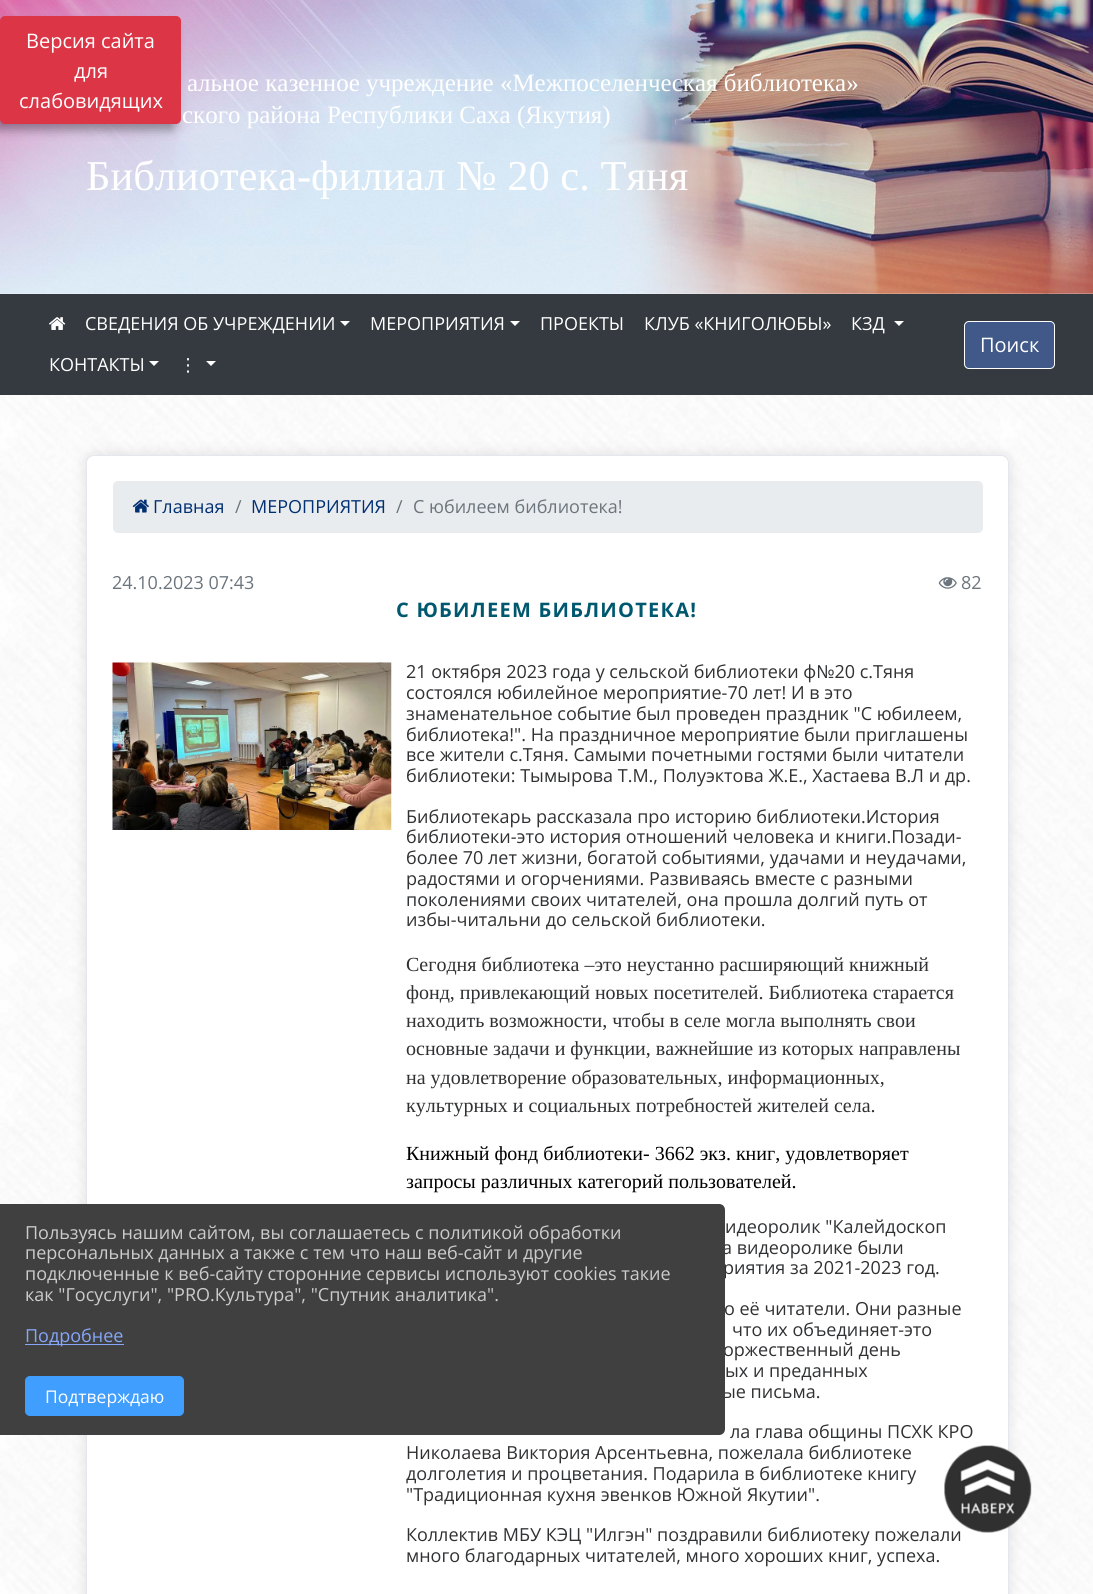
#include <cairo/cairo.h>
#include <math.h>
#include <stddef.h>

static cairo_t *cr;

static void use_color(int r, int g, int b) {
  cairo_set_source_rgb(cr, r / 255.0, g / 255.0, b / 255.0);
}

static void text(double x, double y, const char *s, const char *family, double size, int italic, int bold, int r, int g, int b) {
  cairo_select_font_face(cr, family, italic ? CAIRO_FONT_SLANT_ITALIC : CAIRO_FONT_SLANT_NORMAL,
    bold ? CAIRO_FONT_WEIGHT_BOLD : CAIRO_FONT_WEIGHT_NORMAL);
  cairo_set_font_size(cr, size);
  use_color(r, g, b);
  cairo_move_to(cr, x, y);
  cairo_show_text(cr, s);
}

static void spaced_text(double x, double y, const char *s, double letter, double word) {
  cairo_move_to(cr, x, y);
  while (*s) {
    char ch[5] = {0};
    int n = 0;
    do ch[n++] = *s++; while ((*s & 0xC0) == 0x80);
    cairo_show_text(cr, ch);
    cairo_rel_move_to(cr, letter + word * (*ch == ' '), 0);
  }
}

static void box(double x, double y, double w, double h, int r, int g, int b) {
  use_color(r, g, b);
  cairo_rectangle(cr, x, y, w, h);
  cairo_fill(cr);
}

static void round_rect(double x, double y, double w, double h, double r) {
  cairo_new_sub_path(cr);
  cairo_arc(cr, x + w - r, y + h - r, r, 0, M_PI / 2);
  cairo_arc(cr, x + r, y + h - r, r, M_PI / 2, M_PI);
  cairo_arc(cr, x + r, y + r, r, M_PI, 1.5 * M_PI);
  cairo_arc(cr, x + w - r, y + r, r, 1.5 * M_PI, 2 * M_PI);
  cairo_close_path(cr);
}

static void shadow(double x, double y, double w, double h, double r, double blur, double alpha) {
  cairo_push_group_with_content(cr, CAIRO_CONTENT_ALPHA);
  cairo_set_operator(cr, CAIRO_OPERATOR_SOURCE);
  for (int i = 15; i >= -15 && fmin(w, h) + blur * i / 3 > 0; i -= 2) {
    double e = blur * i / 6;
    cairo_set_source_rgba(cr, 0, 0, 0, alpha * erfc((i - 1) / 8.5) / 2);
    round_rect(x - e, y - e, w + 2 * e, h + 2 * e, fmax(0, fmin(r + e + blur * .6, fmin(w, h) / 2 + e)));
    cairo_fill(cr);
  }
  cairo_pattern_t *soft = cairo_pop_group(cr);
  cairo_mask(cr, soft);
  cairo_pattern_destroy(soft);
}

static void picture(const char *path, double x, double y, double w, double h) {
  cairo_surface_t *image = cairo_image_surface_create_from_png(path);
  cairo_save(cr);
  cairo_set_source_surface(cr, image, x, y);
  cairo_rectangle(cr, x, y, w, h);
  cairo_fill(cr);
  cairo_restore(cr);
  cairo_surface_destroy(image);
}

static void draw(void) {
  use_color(255, 255, 255);
  cairo_paint(cr);
  picture("img_01.png", 0, 293, 1093, 1301);
  picture("img_02.png", 0, 0, 1093, 294);
  use_color(0, 0, 0);
  shadow(-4, 25, 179, 105, 4, 5, 0.35);
  use_color(220, 53, 69);
  round_rect(0.5, 16.5, 180, 107, 4.5);
  cairo_fill_preserve(cr);
  cairo_set_line_width(cr, 1);
  cairo_stroke(cr);
  box(0, 294, 1093, 101, 52, 58, 64);
  picture("img_03.png", 49, 317, 17, 13);
  use_color(255, 255, 255);
  cairo_new_path(cr);
  cairo_move_to(cr, 340, 321);
  cairo_line_to(cr, 350, 321);
  cairo_line_to(cr, 345, 326);
  cairo_close_path(cr);
  cairo_fill(cr);
  cairo_new_path(cr);
  cairo_move_to(cr, 510, 321);
  cairo_line_to(cr, 520, 321);
  cairo_line_to(cr, 515, 326);
  cairo_close_path(cr);
  cairo_fill(cr);
  cairo_new_path(cr);
  cairo_move_to(cr, 894, 321);
  cairo_line_to(cr, 904, 321);
  cairo_line_to(cr, 899, 326);
  cairo_close_path(cr);
  cairo_fill(cr);
  cairo_new_path(cr);
  cairo_move_to(cr, 149, 361);
  cairo_line_to(cr, 159, 361);
  cairo_line_to(cr, 154, 366);
  cairo_close_path(cr);
  cairo_fill(cr);
  cairo_new_path(cr);
  cairo_move_to(cr, 206, 361);
  cairo_line_to(cr, 216, 361);
  cairo_line_to(cr, 211, 366);
  cairo_close_path(cr);
  cairo_fill(cr);
  use_color(64, 89, 136);
  round_rect(964.5, 321.5, 90, 47, 4.5);
  cairo_fill_preserve(cr);
  use_color(255, 255, 255);
  cairo_stroke(cr);
  use_color(0, 0, 0);
  shadow(86, 455, 923, 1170, 8, 7.5, 0.12);
  use_color(255, 255, 255);
  round_rect(86.5, 455.5, 922, 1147, 7.5);
  cairo_fill_preserve(cr);
  use_color(228, 231, 237);
  cairo_stroke(cr);
  use_color(233, 236, 239);
  round_rect(113, 481, 870, 52, 5);
  cairo_fill(cr);
  picture("img_04.png", 132, 499, 17, 14);
  picture("img_05.png", 938, 577, 19, 12);
  picture("img_06.png", 112, 662, 280, 168);
  text(26, 48, "Версия сайта", "Open Sans", 20, 0, 0, 255, 255, 255);
  text(74, 78, "для", "Open Sans", 20, 0, 0, 255, 255, 255);
  text(19, 108, "слабовидящих", "Open Sans", 20, 0, 0, 255, 255, 255);
  text(187, 91, "альное казенное учреждение «Межпоселенческая библиотека»", "Liberation Serif", 25, 0, 0, 255, 255, 255);
  text(182, 123, "ского района Республики Саха (Якутия)", "Liberation Serif", 25, 0, 0, 255, 255, 255);
  text(86, 190, "Библиотека-филиал № 20 с. Тяня", "Liberation Serif", 42.5, 0, 0, 255, 255, 255);
  text(85, 330, "СВЕДЕНИЯ ОБ УЧРЕЖДЕНИИ", "Open Sans", 18, 0, 0, 255, 255, 255);
  text(370, 330, "МЕРОПРИЯТИЯ", "Open Sans", 18, 0, 0, 255, 255, 255);
  text(540, 330, "ПРОЕКТЫ", "Open Sans", 18, 0, 0, 255, 255, 255);
  text(644, 330, "КЛУБ «КНИГОЛЮБЫ»", "Open Sans", 18, 0, 0, 255, 255, 255);
  text(851, 330, "КЗД", "Open Sans", 18, 0, 0, 255, 255, 255);
  text(49, 371, "КОНТАКТЫ", "Open Sans", 18, 0, 0, 255, 255, 255);
  text(179, 371, "⋮", "DejaVu Sans", 18, 0, 0, 255, 255, 255);
  text(980, 352, "Поиск", "Open Sans", 20, 0, 0, 255, 255, 255);
  text(153, 513, "Главная", "Open Sans", 18, 0, 0, 0, 47, 114);
  text(235, 513, "/", "Open Sans", 18, 0, 0, 108, 117, 125);
  text(251, 513, "МЕРОПРИЯТИЯ", "Open Sans", 18, 0, 0, 0, 47, 114);
  text(396, 513, "/", "Open Sans", 18, 0, 0, 108, 117, 125);
  text(413, 513, "С юбилеем библиотека!", "Open Sans", 18, 0, 0, 108, 117, 125);
  text(112, 589, "24.10.2023 07:43", "Open Sans", 18, 0, 0, 108, 117, 125);
  text(961, 589, "82", "Open Sans", 18, 0, 0, 108, 117, 125);
  cairo_select_font_face(cr, "Open Sans", CAIRO_FONT_SLANT_NORMAL, CAIRO_FONT_WEIGHT_BOLD);
  cairo_set_font_size(cr, 20);
  use_color(0, 88, 111);
  spaced_text(396, 617, "С ЮБИЛЕЕМ БИБЛИОТЕКА!", 1.25, 0);
  text(406, 678, "21 октября 2023 года у сельской библиотеки ф№20 с.Тяня", "Open Sans", 18, 0, 0, 48, 49, 51);
  text(406, 699, "состоялся юбилейное мероприятие-70 лет! И в это", "Open Sans", 18, 0, 0, 48, 49, 51);
  text(406, 720, "знаменательное событие был проведен праздник \"С юбилеем,", "Open Sans", 18, 0, 0, 48, 49, 51);
  text(406, 741, "библиотека!\". На праздничное мероприятие были приглашены", "Open Sans", 18, 0, 0, 48, 49, 51);
  text(406, 761, "все жители с.Тяня. Самыми почетными гостями были читатели", "Open Sans", 18, 0, 0, 48, 49, 51);
  text(406, 782, "библиотеки: Тымырова Т.М., Полуэктова Ж.Е., Хастаева В.Л и др.", "Open Sans", 18, 0, 0, 48, 49, 51);
  text(406, 823, "Библиотекарь рассказала про историю библиотеки.История", "Open Sans", 18, 0, 0, 48, 49, 51);
  text(406, 843, "библиотеки-это история отношений человека и книги.Позади-", "Open Sans", 18, 0, 0, 48, 49, 51);
  text(406, 864, "более 70 лет жизни, богатой событиями, удачами и неудачами,", "Open Sans", 18, 0, 0, 48, 49, 51);
  text(406, 885, "радостями и огорчениями. Развиваясь вместе с разными", "Open Sans", 18, 0, 0, 48, 49, 51);
  text(406, 906, "поколениями своих читателей, она прошла долгий путь от", "Open Sans", 18, 0, 0, 48, 49, 51);
  text(406, 926, "избы-читальни до сельской библиотеки.", "Open Sans", 18, 0, 0, 48, 49, 51);
  text(406, 971, "Сегодня библиотека –это неустанно расширяющий книжный", "Liberation Serif", 20, 0, 0, 48, 49, 51);
  text(406, 999, "фонд, привлекающий новых посетителей. Библиотека старается", "Liberation Serif", 20, 0, 0, 48, 49, 51);
  text(406, 1027, "находить возможности, чтобы в селе могла выполнять свои", "Liberation Serif", 20, 0, 0, 48, 49, 51);
  text(406, 1055, "основные задачи и функции, важнейшие из которых направлены", "Liberation Serif", 20, 0, 0, 48, 49, 51);
  text(406, 1084, "на удовлетворение образовательных, информационных,", "Liberation Serif", 20, 0, 0, 48, 49, 51);
  text(406, 1112, "культурных и социальных потребностей жителей села.", "Liberation Serif", 20, 0, 0, 48, 49, 51);
  text(406, 1160, "Книжный фонд библиотеки- 3662 экз. книг, удовлетворяет", "Liberation Serif", 20, 0, 0, 0, 0, 0);
  text(406, 1188, "запросы различных категорий пользователей.", "Liberation Serif", 20, 0, 0, 0, 0, 0);
  text(725, 1233, "идеоролик \"Калейдоскоп", "Open Sans", 18, 0, 0, 48, 49, 51);
  text(722, 1254, "а видеоролике были", "Open Sans", 18, 0, 0, 48, 49, 51);
  text(723, 1274, "риятия за 2021-2023 год.", "Open Sans", 18, 0, 0, 48, 49, 51);
  text(724, 1315, "о её читатели. Они разные", "Open Sans", 18, 0, 0, 48, 49, 51);
  text(732, 1336, "что их объединяет-это", "Open Sans", 18, 0, 0, 48, 49, 51);
  text(723, 1356, "оржественный день", "Open Sans", 18, 0, 0, 48, 49, 51);
  text(725, 1377, "ых и преданных", "Open Sans", 18, 0, 0, 48, 49, 51);
  text(722, 1398, "ые письма.", "Open Sans", 18, 0, 0, 48, 49, 51);
  text(730, 1438, "ла глава общины ПСХК КРО", "Open Sans", 18, 0, 0, 48, 49, 51);
  text(406, 1459, "Николаева Виктория Арсентьевна, пожелала библиотеке", "Open Sans", 18, 0, 0, 48, 49, 51);
  text(406, 1480, "долголетия и процветания. Подарила в библиотеке книгу", "Open Sans", 18, 0, 0, 48, 49, 51);
  text(406, 1501, "\"Традиционная кухня эвенков Южной Якутии\".", "Open Sans", 18, 0, 0, 48, 49, 51);
  text(406, 1541, "Коллектив МБУ КЭЦ \"Илгэн\" поздравили библиотеку пожелали", "Open Sans", 18, 0, 0, 48, 49, 51);
  text(406, 1562, "много благодарных читателей, много хороших книг, успеха.", "Open Sans", 18, 0, 0, 48, 49, 51);
  picture("img_07.png", 944, 1445, 88, 88);
  use_color(64, 64, 64);
  cairo_new_path(cr);
  cairo_move_to(cr, 0, 1204);
  cairo_line_to(cr, 719, 1204);
  cairo_curve_to(cr, 722.5, 1204, 725, 1206.5, 725, 1210);
  cairo_line_to(cr, 725, 1429);
  cairo_curve_to(cr, 725, 1432.5, 722.5, 1435, 719, 1435);
  cairo_line_to(cr, 0, 1435);
  cairo_close_path(cr);
  cairo_fill(cr);
  text(25, 1239, "Пользуясь нашим сайтом, вы соглашаетесь с политикой обработки", "Open Sans", 18, 0, 0, 204, 204, 204);
  text(25, 1259, "персональных данных а также с тем что наш веб-сайт и другие", "Open Sans", 18, 0, 0, 204, 204, 204);
  text(25, 1280, "подключенные к веб-сайту сторонние сервисы используют cookies такие", "Open Sans", 18, 0, 0, 204, 204, 204);
  text(25, 1301, "как \"Госуслуги\", \"PRO.Культура\", \"Спутник аналитика\".", "Open Sans", 18, 0, 0, 204, 204, 204);
  box(25, 1344, 99, 1, 133, 166, 249);
  text(25, 1342, "Подробнее", "Open Sans", 18, 0, 0, 133, 166, 249);
  use_color(64, 158, 255);
  round_rect(25.5, 1376.5, 158, 39, 4.5);
  cairo_fill_preserve(cr);
  cairo_stroke(cr);
  text(45, 1403, "Подтверждаю", "Open Sans", 17.5, 0, 0, 255, 255, 255);
}

int main(void) {
  cairo_surface_t *surface = cairo_image_surface_create(CAIRO_FORMAT_RGB24, 1093, 1594);
  cr = cairo_create(surface);
  cairo_font_options_t *options = cairo_font_options_create();
  cairo_font_options_set_hint_metrics(options, CAIRO_HINT_METRICS_OFF);
  cairo_font_options_set_hint_style(options, CAIRO_HINT_STYLE_NONE);
  cairo_set_font_options(cr, options);
  cairo_set_miter_limit(cr, 4);
  draw();
  cairo_surface_write_to_png(surface, "out.png");
  cairo_font_options_destroy(options);
  cairo_destroy(cr);
  cairo_surface_destroy(surface);
  return 0;
}
